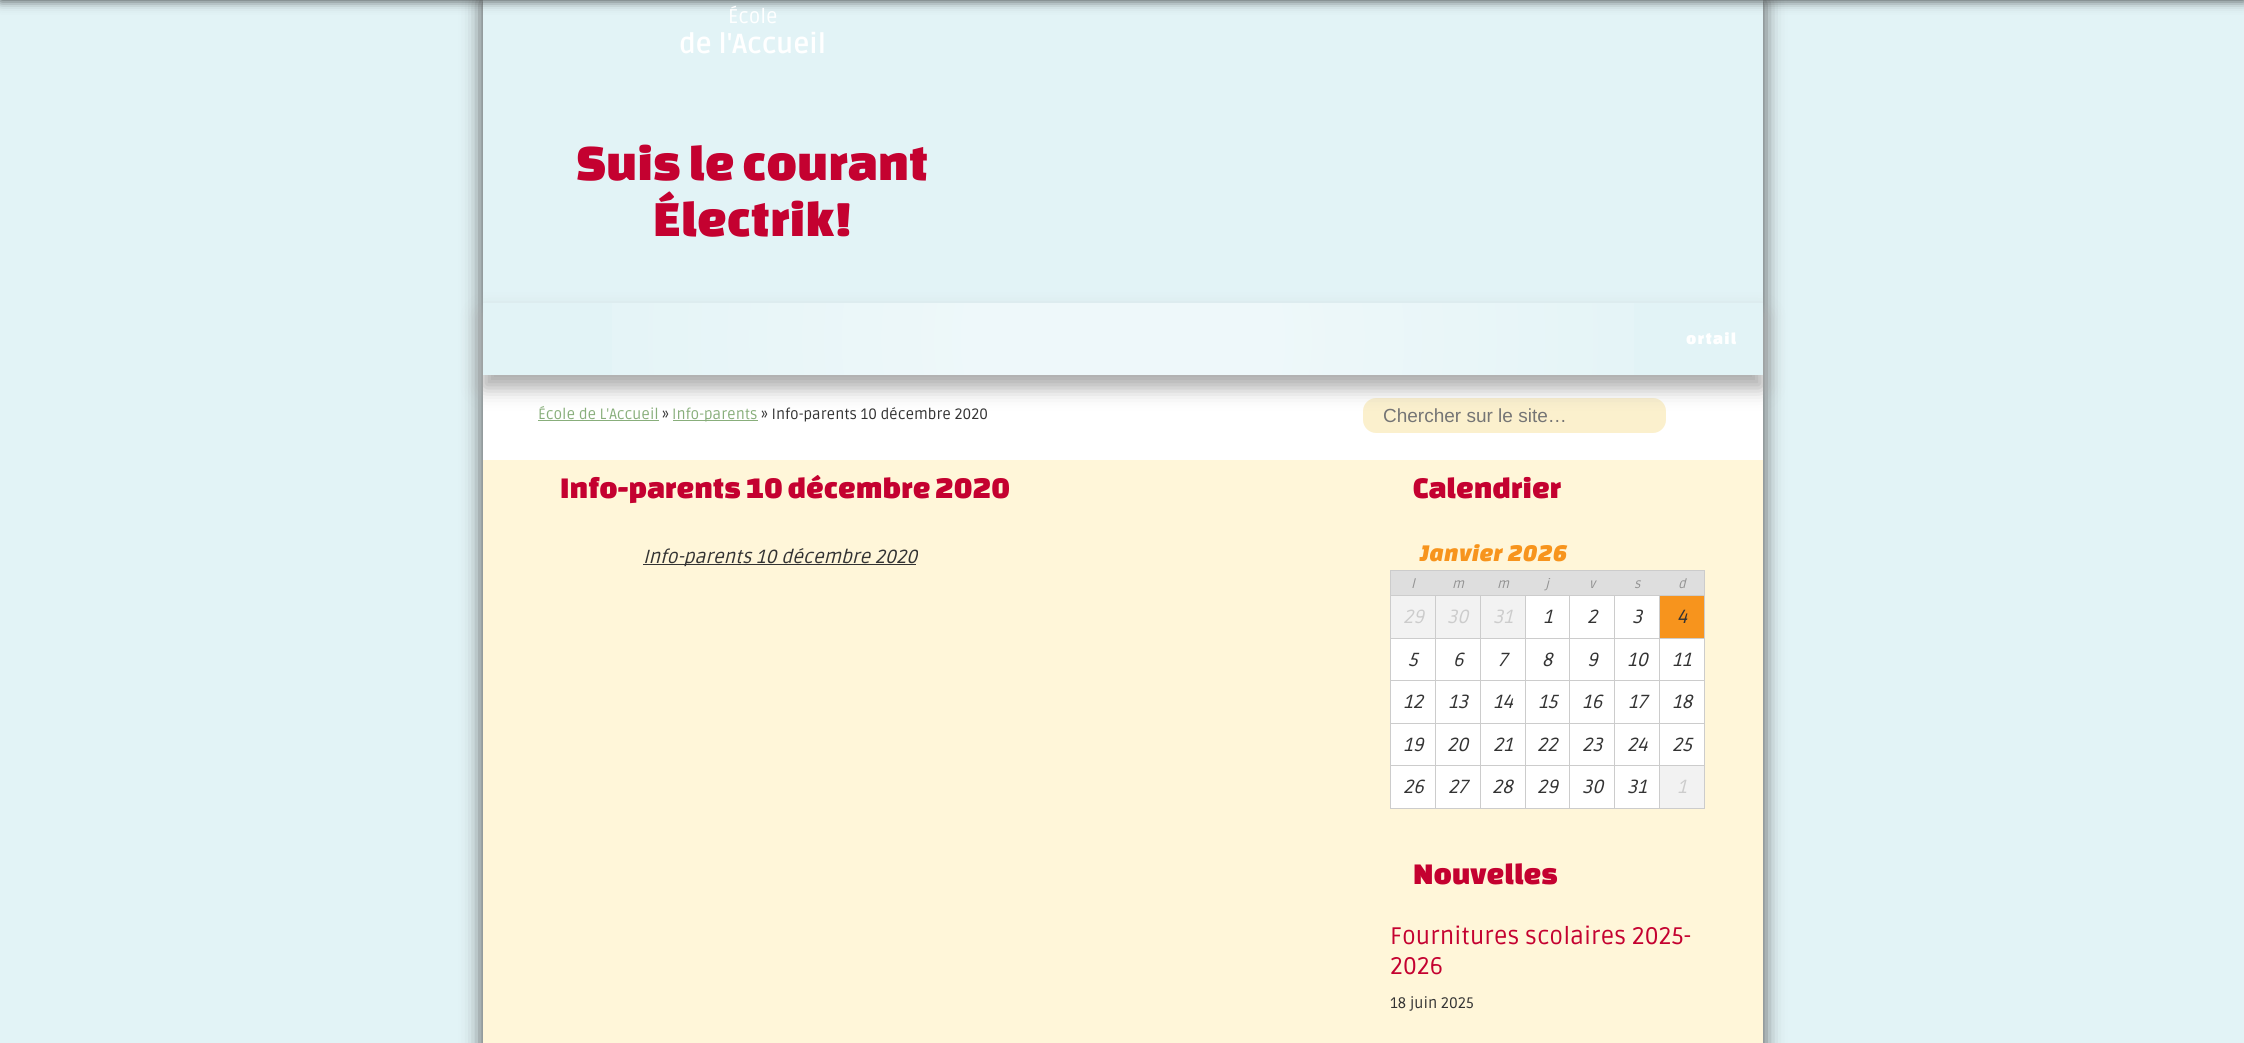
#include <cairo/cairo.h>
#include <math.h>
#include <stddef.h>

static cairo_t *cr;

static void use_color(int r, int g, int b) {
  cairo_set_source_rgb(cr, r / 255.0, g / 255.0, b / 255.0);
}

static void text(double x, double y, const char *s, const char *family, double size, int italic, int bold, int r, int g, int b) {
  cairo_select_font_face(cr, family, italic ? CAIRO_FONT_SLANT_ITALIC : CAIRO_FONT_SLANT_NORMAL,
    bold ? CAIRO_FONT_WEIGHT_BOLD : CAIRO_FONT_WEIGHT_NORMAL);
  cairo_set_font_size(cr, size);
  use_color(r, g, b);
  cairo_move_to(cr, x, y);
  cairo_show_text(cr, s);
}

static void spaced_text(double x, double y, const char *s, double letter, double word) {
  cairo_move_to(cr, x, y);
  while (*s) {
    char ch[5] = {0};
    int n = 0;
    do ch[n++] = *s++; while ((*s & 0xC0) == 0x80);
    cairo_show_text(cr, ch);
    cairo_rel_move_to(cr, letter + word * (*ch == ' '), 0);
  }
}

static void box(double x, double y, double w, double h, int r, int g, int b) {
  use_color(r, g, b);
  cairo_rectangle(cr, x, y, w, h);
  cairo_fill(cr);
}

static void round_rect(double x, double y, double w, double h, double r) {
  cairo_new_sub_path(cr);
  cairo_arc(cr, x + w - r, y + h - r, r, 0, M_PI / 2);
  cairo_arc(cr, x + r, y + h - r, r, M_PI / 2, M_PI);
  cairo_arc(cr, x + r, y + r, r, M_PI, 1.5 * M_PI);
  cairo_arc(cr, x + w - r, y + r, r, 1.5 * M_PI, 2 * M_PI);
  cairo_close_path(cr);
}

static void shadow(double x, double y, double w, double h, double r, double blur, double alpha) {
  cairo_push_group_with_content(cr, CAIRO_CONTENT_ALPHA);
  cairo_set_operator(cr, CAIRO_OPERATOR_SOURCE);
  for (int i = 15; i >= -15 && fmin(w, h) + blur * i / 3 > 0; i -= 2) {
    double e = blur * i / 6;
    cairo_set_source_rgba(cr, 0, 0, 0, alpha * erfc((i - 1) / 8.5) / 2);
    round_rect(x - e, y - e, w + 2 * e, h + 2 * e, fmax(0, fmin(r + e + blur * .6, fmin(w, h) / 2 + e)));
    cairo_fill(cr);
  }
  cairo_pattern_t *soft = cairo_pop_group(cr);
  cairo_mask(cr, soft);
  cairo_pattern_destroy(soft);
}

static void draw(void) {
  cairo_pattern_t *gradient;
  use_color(226, 243, 246);
  cairo_paint(cr);
  use_color(0, 0, 0);
  shadow(0, -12, 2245, 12, 0, 6, 0.8);
  cairo_save(cr);
  cairo_set_fill_rule(cr, CAIRO_FILL_RULE_EVEN_ODD);
  cairo_new_path(cr);
  cairo_move_to(cr, 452, 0);
  cairo_line_to(cr, 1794, 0);
  cairo_line_to(cr, 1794, 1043);
  cairo_line_to(cr, 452, 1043);
  cairo_close_path(cr);
  cairo_move_to(cr, 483, 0);
  cairo_line_to(cr, 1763, 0);
  cairo_line_to(cr, 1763, 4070);
  cairo_line_to(cr, 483, 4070);
  cairo_close_path(cr);
  cairo_clip(cr);
  use_color(68, 68, 68);
  shadow(483, 0, 1280, 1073, 0, 10, 1);
  cairo_restore(cr);
  box(483, 375, 1280, 85, 255, 255, 255);
  use_color(251, 240, 205);
  cairo_new_path(cr);
  cairo_move_to(cr, 1376, 398);
  cairo_line_to(cr, 1631, 398);
  cairo_line_to(cr, 1631, 433);
  cairo_line_to(cr, 1376, 433);
  cairo_curve_to(cr, 1369, 433, 1363, 427, 1363, 420);
  cairo_line_to(cr, 1363, 411);
  cairo_curve_to(cr, 1363, 404, 1369, 398, 1376, 398);
  cairo_close_path(cr);
  cairo_fill(cr);
  cairo_new_path(cr);
  cairo_move_to(cr, 1616, 398);
  cairo_line_to(cr, 1653, 398);
  cairo_curve_to(cr, 1660, 398, 1666, 404, 1666, 411);
  cairo_line_to(cr, 1666, 420);
  cairo_curve_to(cr, 1666, 427, 1660, 433, 1653, 433);
  cairo_line_to(cr, 1616, 433);
  cairo_close_path(cr);
  cairo_fill(cr);
  cairo_save(cr);
  cairo_set_fill_rule(cr, CAIRO_FILL_RULE_EVEN_ODD);
  cairo_new_path(cr);
  cairo_move_to(cr, 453, 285);
  cairo_line_to(cr, 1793, 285);
  cairo_line_to(cr, 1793, 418);
  cairo_line_to(cr, 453, 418);
  cairo_close_path(cr);
  cairo_move_to(cr, 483, 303);
  cairo_line_to(cr, 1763, 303);
  cairo_line_to(cr, 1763, 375);
  cairo_line_to(cr, 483, 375);
  cairo_close_path(cr);
  cairo_clip(cr);
  use_color(170, 170, 170);
  shadow(483, 315, 1280, 73, 0, 9.5, 1);
  cairo_restore(cr);
  gradient = cairo_pattern_create_radial(1123, 339, 0, 1123, 339, 641);
  cairo_pattern_add_color_stop_rgba(gradient, 0.25, 1, 1, 1, 0.4);
  cairo_pattern_add_color_stop_rgba(gradient, 0.95, 1, 1, 1, 0);
  cairo_set_source(cr, gradient);
  cairo_pattern_destroy(gradient);
  cairo_rectangle(cr, 612, 303, 1022, 72);
  cairo_fill(cr);
  box(483, 460, 1280, 583, 255, 246, 217);
  box(538, 420, 121, 1, 136, 174, 123);
  box(673, 420, 85, 1, 136, 174, 123);
  box(643, 564, 273, 1, 51, 51, 51);
  box(1390, 570, 315, 1, 204, 204, 204);
  box(1704, 570, 1, 239, 204, 204, 204);
  box(1390, 808, 315, 1, 204, 204, 204);
  box(1390, 570, 1, 239, 204, 204, 204);
  box(1391, 571, 313, 24, 222, 222, 222);
  box(1391, 596, 44, 42, 242, 242, 242);
  box(1659, 595, 46, 1, 204, 204, 204);
  box(1659, 638, 46, 1, 204, 204, 204);
  box(1659, 680, 46, 1, 204, 204, 204);
  box(1659, 723, 46, 1, 204, 204, 204);
  box(1659, 765, 46, 1, 204, 204, 204);
  box(1659, 765, 1, 44, 204, 204, 204);
  box(1614, 765, 46, 1, 204, 204, 204);
  box(1659, 723, 1, 43, 204, 204, 204);
  box(1614, 723, 46, 1, 204, 204, 204);
  box(1659, 680, 1, 44, 204, 204, 204);
  box(1614, 680, 46, 1, 204, 204, 204);
  box(1659, 638, 1, 43, 204, 204, 204);
  box(1614, 638, 46, 1, 204, 204, 204);
  box(1659, 595, 1, 44, 204, 204, 204);
  box(1614, 595, 46, 1, 204, 204, 204);
  box(1614, 765, 1, 44, 204, 204, 204);
  box(1569, 765, 46, 1, 204, 204, 204);
  box(1614, 723, 1, 43, 204, 204, 204);
  box(1569, 723, 46, 1, 204, 204, 204);
  box(1614, 680, 1, 44, 204, 204, 204);
  box(1569, 680, 46, 1, 204, 204, 204);
  box(1614, 638, 1, 43, 204, 204, 204);
  box(1569, 638, 46, 1, 204, 204, 204);
  box(1614, 595, 1, 44, 204, 204, 204);
  box(1569, 595, 46, 1, 204, 204, 204);
  box(1569, 765, 1, 44, 204, 204, 204);
  box(1525, 765, 45, 1, 204, 204, 204);
  box(1569, 723, 1, 43, 204, 204, 204);
  box(1525, 723, 45, 1, 204, 204, 204);
  box(1569, 680, 1, 44, 204, 204, 204);
  box(1525, 680, 45, 1, 204, 204, 204);
  box(1569, 638, 1, 43, 204, 204, 204);
  box(1525, 638, 45, 1, 204, 204, 204);
  box(1569, 595, 1, 44, 204, 204, 204);
  box(1525, 595, 45, 1, 204, 204, 204);
  box(1525, 765, 1, 44, 204, 204, 204);
  box(1480, 765, 46, 1, 204, 204, 204);
  box(1525, 723, 1, 43, 204, 204, 204);
  box(1480, 723, 46, 1, 204, 204, 204);
  box(1525, 680, 1, 44, 204, 204, 204);
  box(1480, 680, 46, 1, 204, 204, 204);
  box(1525, 638, 1, 43, 204, 204, 204);
  box(1480, 638, 46, 1, 204, 204, 204);
  box(1525, 595, 1, 44, 204, 204, 204);
  box(1480, 595, 46, 1, 204, 204, 204);
  box(1480, 765, 1, 44, 204, 204, 204);
  box(1435, 765, 46, 1, 204, 204, 204);
  box(1480, 723, 1, 43, 204, 204, 204);
  box(1435, 723, 46, 1, 204, 204, 204);
  box(1480, 680, 1, 44, 204, 204, 204);
  box(1435, 680, 46, 1, 204, 204, 204);
  box(1480, 638, 1, 43, 204, 204, 204);
  box(1435, 638, 46, 1, 204, 204, 204);
  box(1480, 595, 1, 44, 204, 204, 204);
  box(1435, 595, 46, 1, 204, 204, 204);
  box(1435, 765, 1, 44, 204, 204, 204);
  box(1390, 765, 46, 1, 204, 204, 204);
  box(1435, 723, 1, 43, 204, 204, 204);
  box(1390, 723, 46, 1, 204, 204, 204);
  box(1435, 680, 1, 44, 204, 204, 204);
  box(1390, 680, 46, 1, 204, 204, 204);
  box(1435, 638, 1, 43, 204, 204, 204);
  box(1390, 638, 46, 1, 204, 204, 204);
  box(1435, 595, 1, 44, 204, 204, 204);
  box(1390, 595, 46, 1, 204, 204, 204);
  box(1436, 596, 44, 42, 242, 242, 242);
  box(1481, 596, 44, 42, 242, 242, 242);
  box(1526, 596, 43, 42, 255, 255, 255);
  box(1570, 596, 44, 42, 255, 255, 255);
  box(1615, 596, 44, 42, 255, 255, 255);
  box(1660, 596, 44, 42, 247, 148, 29);
  box(1391, 639, 44, 41, 255, 255, 255);
  box(1436, 639, 44, 41, 255, 255, 255);
  box(1481, 639, 44, 41, 255, 255, 255);
  box(1526, 639, 43, 41, 255, 255, 255);
  box(1570, 639, 44, 41, 255, 255, 255);
  box(1615, 639, 44, 41, 255, 255, 255);
  box(1660, 639, 44, 41, 255, 255, 255);
  box(1391, 681, 44, 42, 255, 255, 255);
  box(1436, 681, 44, 42, 255, 255, 255);
  box(1481, 681, 44, 42, 255, 255, 255);
  box(1526, 681, 43, 42, 255, 255, 255);
  box(1570, 681, 44, 42, 255, 255, 255);
  box(1615, 681, 44, 42, 255, 255, 255);
  box(1660, 681, 44, 42, 255, 255, 255);
  box(1391, 724, 44, 41, 255, 255, 255);
  box(1436, 724, 44, 41, 255, 255, 255);
  box(1481, 724, 44, 41, 255, 255, 255);
  box(1526, 724, 43, 41, 255, 255, 255);
  box(1570, 724, 44, 41, 255, 255, 255);
  box(1615, 724, 44, 41, 255, 255, 255);
  box(1660, 724, 44, 41, 255, 255, 255);
  box(1391, 766, 44, 42, 255, 255, 255);
  box(1436, 766, 44, 42, 255, 255, 255);
  box(1481, 766, 44, 42, 255, 255, 255);
  box(1526, 766, 43, 42, 255, 255, 255);
  box(1570, 766, 44, 42, 255, 255, 255);
  box(1615, 766, 44, 42, 255, 255, 255);
  box(1660, 766, 44, 42, 242, 242, 242);
  text(728, 23, "École", "Ruda", 20, 0, 0, 255, 255, 255);
  text(679, 53, "de l'Accueil", "Ruda", 27.5, 0, 1, 255, 255, 255);
  text(576, 180, "Suis le courant", "Changa One", 52.5, 0, 0, 196, 1, 48);
  text(653, 236, "Électrik!", "Changa One", 52.5, 0, 0, 196, 1, 48);
  cairo_set_font_size(cr, 17.5);
  use_color(255, 255, 255);
  spaced_text(1686, 344, "ortail", 1.25, 0);
  text(538, 419, "École de L'Accueil", "Ruda", 15, 0, 0, 136, 174, 123);
  text(662, 419, "»", "Ruda", 15, 0, 0, 51, 51, 51);
  text(672, 419, "Info-parents", "Ruda", 15, 0, 0, 136, 174, 123);
  text(761, 419, "» Info-parents 10 décembre 2020", "Ruda", 15, 0, 0, 51, 51, 51);
  text(1383, 422, "Chercher sur le site…", "Liberation Sans", 19, 0, 0, 117, 117, 117);
  text(560, 498, "Info-parents 10 décembre 2020", "Changa One", 31.25, 0, 0, 196, 1, 48);
  text(643, 563, "Info-parents 10 décembre 2020", "Ruda", 19, 1, 0, 51, 51, 51);
  text(1413, 498, "Calendrier", "Changa One", 31.25, 0, 0, 196, 1, 48);
  text(1420, 561, "Janvier 2026", "Changa One", 25, 1, 0, 247, 148, 29);
  text(1411, 588, "l", "Ruda", 13, 1, 0, 146, 146, 146);
  text(1452, 588, "m", "Ruda", 13, 1, 0, 146, 146, 146);
  text(1497, 588, "m", "Ruda", 13, 1, 0, 146, 146, 146);
  text(1545, 588, "j", "Ruda", 13, 1, 0, 146, 146, 146);
  text(1589, 588, "v", "Ruda", 13, 1, 0, 146, 146, 146);
  text(1634, 588, "s", "Ruda", 13, 1, 0, 146, 146, 146);
  text(1678, 588, "d", "Ruda", 13, 1, 0, 146, 146, 146);
  text(1403, 623, "29", "Ruda", 19, 1, 0, 204, 204, 204);
  text(1447, 623, "30", "Ruda", 19, 1, 0, 204, 204, 204);
  text(1493, 623, "31", "Ruda", 19, 1, 0, 204, 204, 204);
  text(1543, 623, "1", "Ruda", 19, 1, 0, 51, 51, 51);
  text(1587, 623, "2", "Ruda", 19, 1, 0, 51, 51, 51);
  text(1632, 623, "3", "Ruda", 19, 1, 0, 51, 51, 51);
  text(1677, 623, "4", "Ruda", 19, 1, 0, 51, 51, 51);
  text(1408, 666, "5", "Ruda", 19, 1, 0, 51, 51, 51);
  text(1453, 666, "6", "Ruda", 19, 1, 0, 51, 51, 51);
  text(1498, 666, "7", "Ruda", 19, 1, 0, 51, 51, 51);
  text(1542, 666, "8", "Ruda", 19, 1, 0, 51, 51, 51);
  text(1587, 666, "9", "Ruda", 19, 1, 0, 51, 51, 51);
  text(1627, 666, "10", "Ruda", 19, 1, 0, 51, 51, 51);
  text(1672, 666, "11", "Ruda", 19, 1, 0, 51, 51, 51);
  text(1403, 708, "12", "Ruda", 19, 1, 0, 51, 51, 51);
  text(1448, 708, "13", "Ruda", 19, 1, 0, 51, 51, 51);
  text(1493, 708, "14", "Ruda", 19, 1, 0, 51, 51, 51);
  text(1538, 708, "15", "Ruda", 19, 1, 0, 51, 51, 51);
  text(1582, 708, "16", "Ruda", 19, 1, 0, 51, 51, 51);
  text(1628, 708, "17", "Ruda", 19, 1, 0, 51, 51, 51);
  text(1672, 708, "18", "Ruda", 19, 1, 0, 51, 51, 51);
  text(1403, 751, "19", "Ruda", 19, 1, 0, 51, 51, 51);
  text(1447, 751, "20", "Ruda", 19, 1, 0, 51, 51, 51);
  text(1493, 751, "21", "Ruda", 19, 1, 0, 51, 51, 51);
  text(1537, 751, "22", "Ruda", 19, 1, 0, 51, 51, 51);
  text(1582, 751, "23", "Ruda", 19, 1, 0, 51, 51, 51);
  text(1627, 751, "24", "Ruda", 19, 1, 0, 51, 51, 51);
  text(1672, 751, "25", "Ruda", 19, 1, 0, 51, 51, 51);
  text(1403, 793, "26", "Ruda", 19, 1, 0, 51, 51, 51);
  text(1448, 793, "27", "Ruda", 19, 1, 0, 51, 51, 51);
  text(1492, 793, "28", "Ruda", 19, 1, 0, 51, 51, 51);
  text(1537, 793, "29", "Ruda", 19, 1, 0, 51, 51, 51);
  text(1582, 793, "30", "Ruda", 19, 1, 0, 51, 51, 51);
  text(1627, 793, "31", "Ruda", 19, 1, 0, 51, 51, 51);
  text(1677, 793, "1", "Ruda", 19, 1, 0, 204, 204, 204);
  text(1413, 884, "Nouvelles", "Changa One", 31.25, 0, 0, 196, 1, 48);
  text(1390, 944, "Fournitures scolaires 2025-", "Ruda", 24, 0, 0, 196, 1, 48);
  text(1390, 974, "2026", "Ruda", 24, 0, 0, 196, 1, 48);
  text(1390, 1008, "18 juin 2025", "Ruda", 15.25, 0, 0, 51, 51, 51);
}

int main(void) {
  cairo_surface_t *surface = cairo_image_surface_create(CAIRO_FORMAT_RGB24, 2244, 1043);
  cr = cairo_create(surface);
  cairo_font_options_t *options = cairo_font_options_create();
  cairo_font_options_set_hint_metrics(options, CAIRO_HINT_METRICS_OFF);
  cairo_font_options_set_hint_style(options, CAIRO_HINT_STYLE_NONE);
  cairo_set_font_options(cr, options);
  cairo_set_miter_limit(cr, 4);
  draw();
  cairo_surface_write_to_png(surface, "out.png");
  cairo_font_options_destroy(options);
  cairo_destroy(cr);
  cairo_surface_destroy(surface);
  return 0;
}
